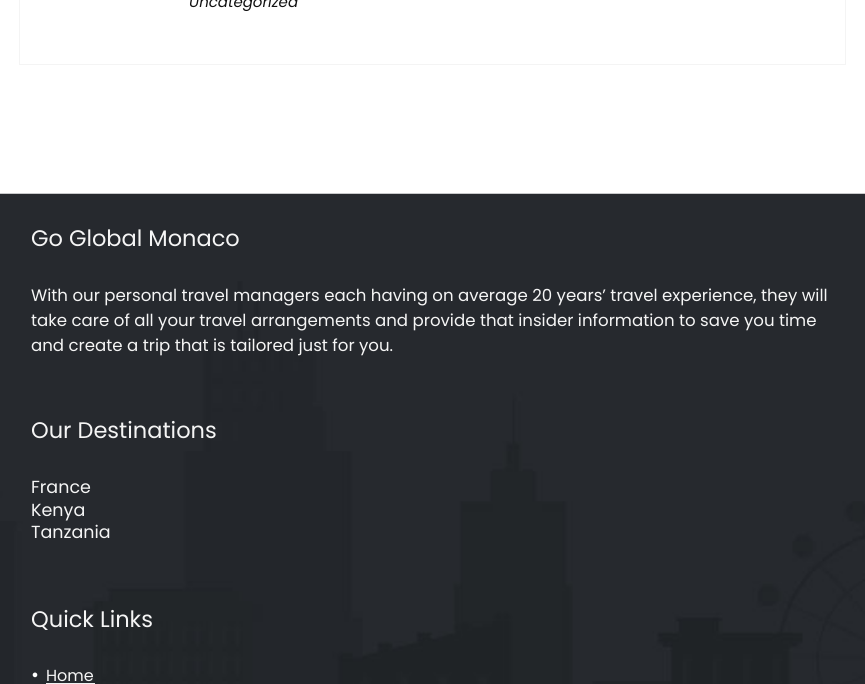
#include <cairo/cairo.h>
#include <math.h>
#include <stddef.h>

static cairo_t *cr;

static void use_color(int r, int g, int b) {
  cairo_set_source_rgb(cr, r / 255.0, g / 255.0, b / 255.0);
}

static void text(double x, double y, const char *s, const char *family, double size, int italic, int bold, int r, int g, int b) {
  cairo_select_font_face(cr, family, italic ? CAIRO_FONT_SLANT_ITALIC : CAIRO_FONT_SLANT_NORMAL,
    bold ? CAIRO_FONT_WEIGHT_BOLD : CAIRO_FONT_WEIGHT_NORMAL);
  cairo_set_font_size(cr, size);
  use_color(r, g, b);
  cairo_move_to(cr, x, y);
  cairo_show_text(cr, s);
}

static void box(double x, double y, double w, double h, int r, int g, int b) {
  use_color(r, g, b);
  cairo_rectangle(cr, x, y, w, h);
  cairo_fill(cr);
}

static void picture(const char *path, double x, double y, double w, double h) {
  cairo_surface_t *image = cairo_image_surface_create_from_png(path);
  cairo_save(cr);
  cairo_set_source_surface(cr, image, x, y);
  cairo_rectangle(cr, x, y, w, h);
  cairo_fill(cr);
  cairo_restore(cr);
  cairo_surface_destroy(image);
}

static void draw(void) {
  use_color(255, 255, 255);
  cairo_paint(cr);
  cairo_rectangle(cr, 19.5, -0.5, 826, 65);
  use_color(244, 244, 244);
  cairo_set_line_width(cr, 1);
  cairo_stroke(cr);
  picture("img_01.png", 0, 193, 865, 491);
  box(46, 683, 49, 1, 241, 241, 241);
  text(189, 7, "Uncategorized", "Poppins", 15, 1, 0, 17, 17, 17);
  text(31, 246, "Go Global Monaco", "Poppins", 22.5, 0, 0, 245, 245, 245);
  text(31, 301, "With our personal travel managers each having on average 20 years’ travel experience, they will", "Poppins", 16.6, 0, 0, 245, 245, 245);
  text(31, 326, "take care of all your travel arrangements and provide that insider information to save you time", "Poppins", 16.6, 0, 0, 245, 245, 245);
  text(31, 351, "and create a trip that is tailored just for you.", "Poppins", 16.6, 0, 0, 245, 245, 245);
  text(31, 438, "Our Destinations", "Poppins", 22.5, 0, 0, 245, 245, 245);
  text(31, 493, "France", "Poppins", 17.5, 0, 0, 245, 245, 245);
  text(31, 516, "Kenya", "Poppins", 17.5, 0, 0, 245, 245, 245);
  text(31, 538, "Tanzania", "Poppins", 17.5, 0, 0, 245, 245, 245);
  text(31, 627, "Quick Links", "Poppins", 22.5, 0, 0, 245, 245, 245);
  text(31, 677, ".", "Poppins", 38, 0, 0, 255, 255, 255);
  text(46, 681, "Home", "Poppins", 16, 0, 0, 245, 245, 245);
}

int main(void) {
  cairo_surface_t *surface = cairo_image_surface_create(CAIRO_FORMAT_RGB24, 865, 684);
  cr = cairo_create(surface);
  cairo_font_options_t *options = cairo_font_options_create();
  cairo_font_options_set_hint_metrics(options, CAIRO_HINT_METRICS_OFF);
  cairo_font_options_set_hint_style(options, CAIRO_HINT_STYLE_NONE);
  cairo_set_font_options(cr, options);
  cairo_set_miter_limit(cr, 4);
  draw();
  cairo_surface_write_to_png(surface, "out.png");
  cairo_font_options_destroy(options);
  cairo_destroy(cr);
  cairo_surface_destroy(surface);
  return 0;
}
